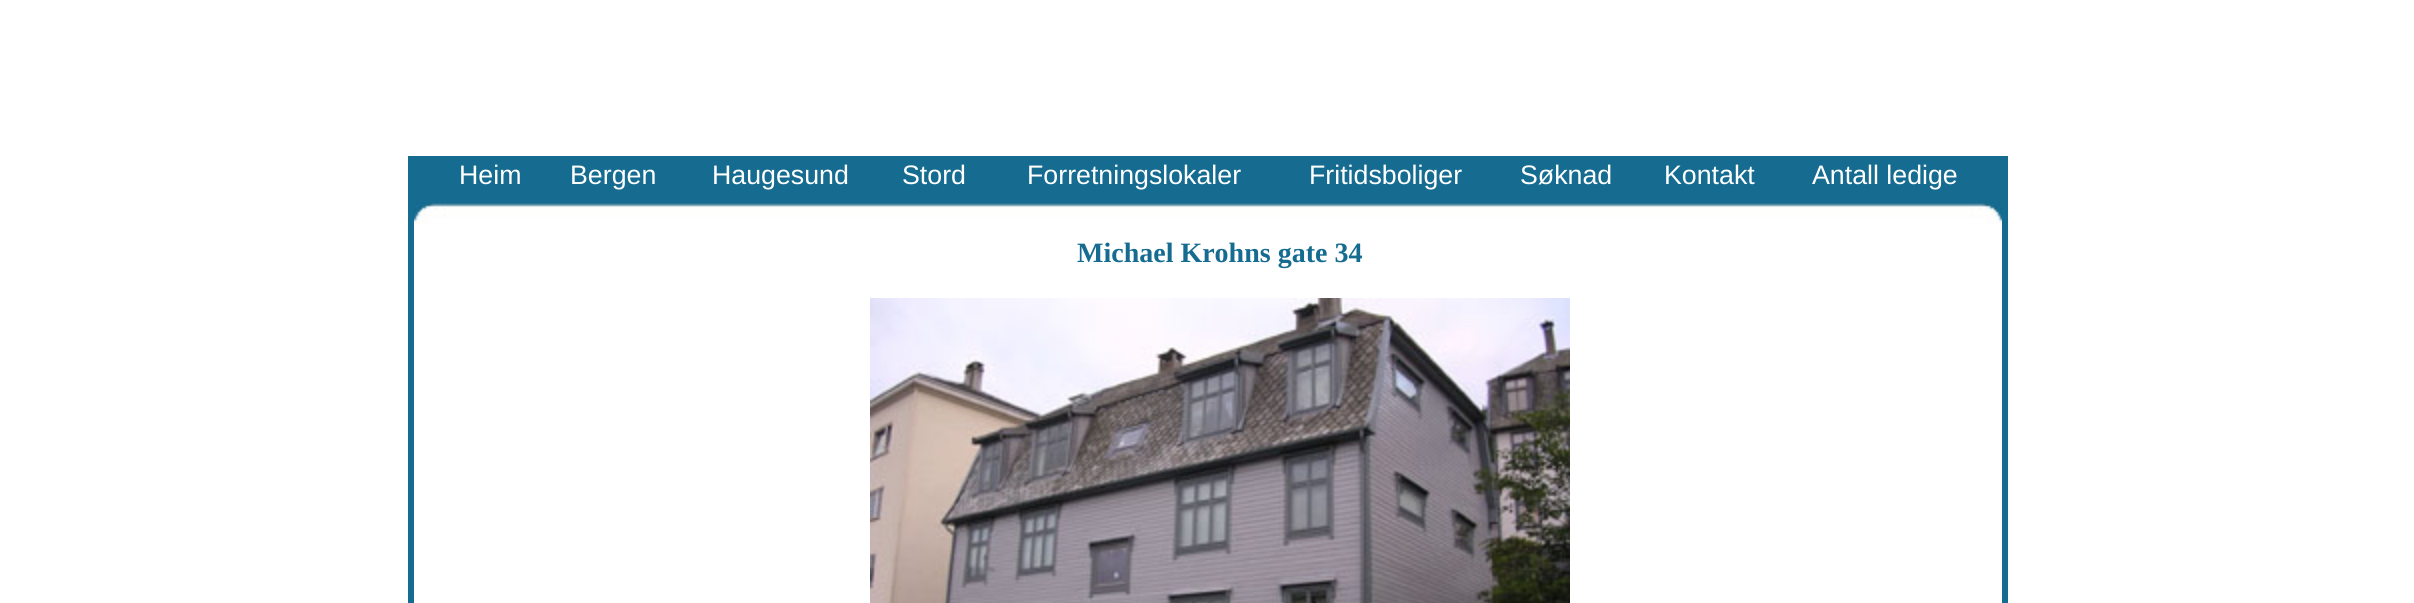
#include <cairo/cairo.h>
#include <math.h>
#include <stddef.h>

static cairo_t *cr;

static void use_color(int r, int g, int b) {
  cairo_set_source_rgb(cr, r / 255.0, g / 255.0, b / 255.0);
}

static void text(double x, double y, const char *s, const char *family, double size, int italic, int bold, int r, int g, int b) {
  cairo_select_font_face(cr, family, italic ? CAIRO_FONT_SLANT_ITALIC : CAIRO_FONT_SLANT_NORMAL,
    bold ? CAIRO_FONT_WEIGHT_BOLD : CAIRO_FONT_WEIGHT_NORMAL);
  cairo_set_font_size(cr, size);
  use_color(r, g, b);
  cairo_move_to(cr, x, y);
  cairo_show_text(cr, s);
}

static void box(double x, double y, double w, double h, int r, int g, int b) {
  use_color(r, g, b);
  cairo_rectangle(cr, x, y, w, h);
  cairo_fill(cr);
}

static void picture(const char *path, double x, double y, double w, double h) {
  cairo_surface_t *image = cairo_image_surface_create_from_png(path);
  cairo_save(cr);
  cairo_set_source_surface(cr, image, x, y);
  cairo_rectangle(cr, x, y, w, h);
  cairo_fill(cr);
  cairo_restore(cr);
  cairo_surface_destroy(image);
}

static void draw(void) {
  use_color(255, 255, 255);
  cairo_paint(cr);
  box(408, 156, 1600, 447, 21, 108, 144);
  picture("img_01.png", 414, 202, 1588, 22);
  box(414, 224, 1588, 379, 255, 255, 255);
  picture("img_02.png", 870, 298, 700, 305);
  text(459, 184, "Heim", "Liberation Sans", 26.75, 0, 0, 255, 255, 255);
  text(570, 184, "Bergen", "Liberation Sans", 26.75, 0, 0, 255, 255, 255);
  text(712, 184, "Haugesund", "Liberation Sans", 26.75, 0, 0, 255, 255, 255);
  text(902, 184, "Stord", "Liberation Sans", 26.75, 0, 0, 255, 255, 255);
  text(1027, 184, "Forretningslokaler", "Liberation Sans", 26.75, 0, 0, 255, 255, 255);
  text(1309, 184, "Fritidsboliger", "Liberation Sans", 26.75, 0, 0, 255, 255, 255);
  text(1520, 184, "Søknad", "Liberation Sans", 26.75, 0, 0, 255, 255, 255);
  text(1664, 184, "Kontakt", "Liberation Sans", 26.75, 0, 0, 255, 255, 255);
  text(1812, 184, "Antall ledige", "Liberation Sans", 26.75, 0, 0, 255, 255, 255);
  text(1077, 262, "Michael Krohns gate 34", "Liberation Serif", 28, 0, 1, 21, 108, 144);
}

int main(void) {
  cairo_surface_t *surface = cairo_image_surface_create(CAIRO_FORMAT_RGB24, 2414, 603);
  cr = cairo_create(surface);
  cairo_font_options_t *options = cairo_font_options_create();
  cairo_font_options_set_hint_metrics(options, CAIRO_HINT_METRICS_OFF);
  cairo_font_options_set_hint_style(options, CAIRO_HINT_STYLE_NONE);
  cairo_set_font_options(cr, options);
  cairo_set_miter_limit(cr, 4);
  draw();
  cairo_surface_write_to_png(surface, "out.png");
  cairo_font_options_destroy(options);
  cairo_destroy(cr);
  cairo_surface_destroy(surface);
  return 0;
}
